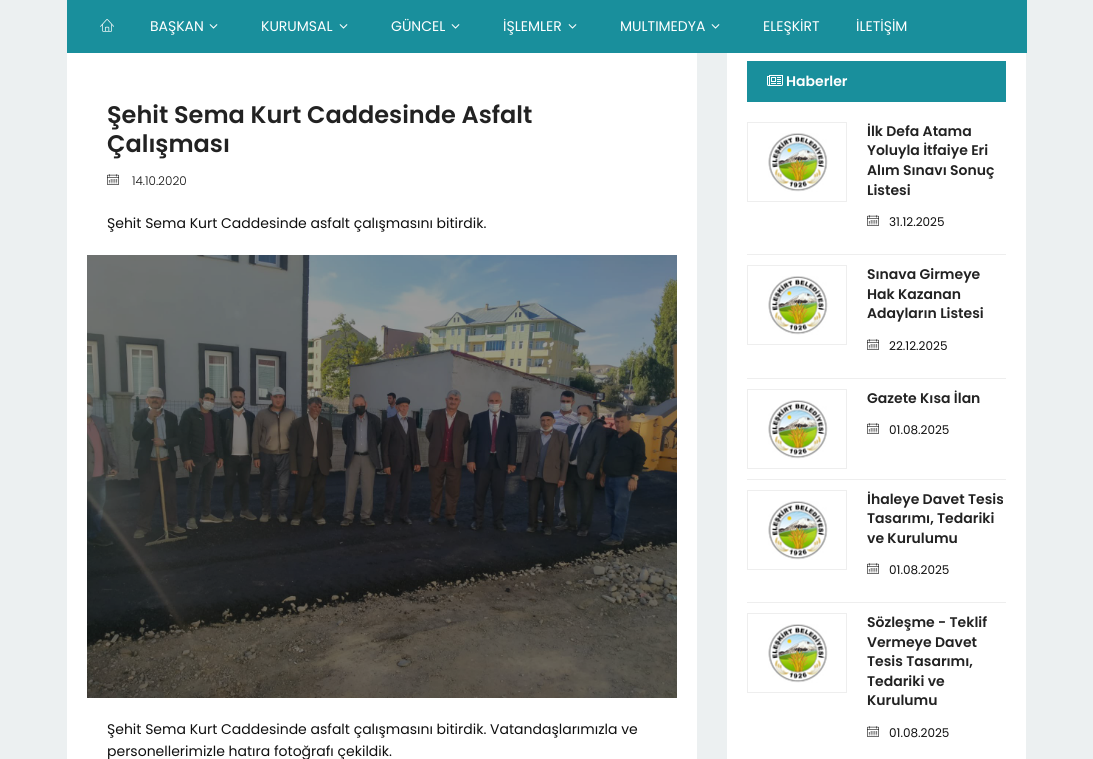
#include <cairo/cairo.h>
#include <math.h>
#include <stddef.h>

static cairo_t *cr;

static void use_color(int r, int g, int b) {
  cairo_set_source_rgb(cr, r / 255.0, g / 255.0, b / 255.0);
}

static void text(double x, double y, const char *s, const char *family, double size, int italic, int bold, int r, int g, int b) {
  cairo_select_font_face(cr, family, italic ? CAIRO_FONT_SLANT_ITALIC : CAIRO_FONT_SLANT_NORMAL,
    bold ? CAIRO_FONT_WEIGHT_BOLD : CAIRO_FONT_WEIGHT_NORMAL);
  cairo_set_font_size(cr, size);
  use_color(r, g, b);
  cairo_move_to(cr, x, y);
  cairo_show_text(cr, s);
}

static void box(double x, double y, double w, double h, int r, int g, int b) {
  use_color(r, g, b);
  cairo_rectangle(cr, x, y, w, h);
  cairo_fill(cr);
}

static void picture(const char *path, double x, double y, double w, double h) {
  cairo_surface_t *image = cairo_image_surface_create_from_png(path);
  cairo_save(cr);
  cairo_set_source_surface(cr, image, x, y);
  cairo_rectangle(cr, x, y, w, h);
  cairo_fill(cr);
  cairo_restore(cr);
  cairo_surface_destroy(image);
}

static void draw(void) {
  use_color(236, 240, 241);
  cairo_paint(cr);
  box(67, 0, 960, 53, 25, 143, 156);
  picture("img_01.png", 100, 19, 14, 13);
  picture("img_02.png", 209, 24, 9, 5);
  picture("img_02.png", 339, 24, 9, 5);
  picture("img_02.png", 451, 24, 9, 5);
  picture("img_02.png", 568, 24, 9, 5);
  picture("img_02.png", 711, 24, 9, 5);
  box(67, 53, 630, 706, 255, 255, 255);
  picture("img_03.png", 107, 174, 12, 11);
  picture("img_04.png", 87, 255, 590, 443);
  box(727, 53, 299, 706, 255, 255, 255);
  box(747, 61, 259, 41, 25, 143, 156);
  picture("img_05.png", 767, 75, 16, 11);
  box(747, 254, 259, 1, 238, 238, 238);
  cairo_rectangle(cr, 747.5, 122.5, 99, 79);
  cairo_set_line_width(cr, 1);
  cairo_stroke(cr);
  picture("img_06.png", 768, 133, 60, 59);
  picture("img_03.png", 867, 215, 12, 11);
  box(747, 378, 259, 1, 238, 238, 238);
  cairo_rectangle(cr, 747.5, 265.5, 99, 79);
  cairo_stroke(cr);
  picture("img_07.png", 768, 276, 60, 59);
  picture("img_03.png", 867, 339, 12, 11);
  box(747, 479, 259, 1, 238, 238, 238);
  cairo_rectangle(cr, 747.5, 389.5, 99, 79);
  cairo_stroke(cr);
  picture("img_07.png", 768, 400, 60, 59);
  picture("img_03.png", 867, 423, 12, 11);
  box(747, 602, 259, 1, 238, 238, 238);
  cairo_rectangle(cr, 747.5, 490.5, 99, 79);
  cairo_stroke(cr);
  picture("img_06.png", 768, 501, 60, 59);
  picture("img_03.png", 867, 563, 12, 11);
  cairo_rectangle(cr, 747.5, 613.5, 99, 79);
  cairo_stroke(cr);
  picture("img_07.png", 768, 624, 60, 59);
  picture("img_03.png", 867, 726, 12, 11);
  text(150, 31, "BAŞKAN", "Poppins", 14, 0, 0, 255, 255, 255);
  text(261, 31, "KURUMSAL", "Poppins", 14, 0, 0, 255, 255, 255);
  text(391, 31, "GÜNCEL", "Poppins", 14, 0, 0, 255, 255, 255);
  text(503, 31, "İŞLEMLER", "Poppins", 14, 0, 0, 255, 255, 255);
  text(620, 31, "MULTIMEDYA", "Poppins", 14, 0, 0, 255, 255, 255);
  text(763, 31, "ELEŞKİRT", "Poppins", 14, 0, 0, 255, 255, 255);
  text(856, 31, "İLETİŞİM", "Poppins", 14, 0, 0, 255, 255, 255);
  text(107, 123, "Şehit Sema Kurt Caddesinde Asfalt", "Poppins SemiBold", 24, 0, 0, 34, 34, 34);
  text(107, 152, "Çalışması", "Poppins SemiBold", 24, 0, 0, 34, 34, 34);
  text(132, 185, "14.10.2020", "Poppins Light", 12, 0, 0, 15, 15, 15);
  text(107, 228, "Şehit Sema Kurt Caddesinde asfalt çalışmasını bitirdik.", "Poppins", 14, 0, 0, 15, 15, 15);
  text(107, 734, "Şehit Sema Kurt Caddesinde asfalt çalışmasını bitirdik. Vatandaşlarımızla ve", "Poppins", 14, 0, 0, 15, 15, 15);
  text(107, 756, "personellerimizle hatıra fotoğrafı çekildik.", "Poppins", 14, 0, 0, 15, 15, 15);
  text(786, 86, "Haberler", "Poppins SemiBold", 14, 0, 0, 255, 255, 255);
  text(867, 136, "İlk Defa Atama", "Poppins SemiBold", 14, 0, 0, 34, 34, 34);
  text(867, 155, "Yoluyla İtfaiye Eri", "Poppins SemiBold", 14, 0, 0, 34, 34, 34);
  text(867, 175, "Alım Sınavı Sonuç", "Poppins SemiBold", 14, 0, 0, 34, 34, 34);
  text(867, 195, "Listesi", "Poppins SemiBold", 14, 0, 0, 34, 34, 34);
  text(889, 226, "31.12.2025", "Poppins", 12, 0, 0, 15, 15, 15);
  text(867, 279, "Sınava Girmeye", "Poppins SemiBold", 14, 0, 0, 34, 34, 34);
  text(867, 299, "Hak Kazanan", "Poppins SemiBold", 14, 0, 0, 34, 34, 34);
  text(867, 318, "Adayların Listesi", "Poppins SemiBold", 14, 0, 0, 34, 34, 34);
  text(889, 350, "22.12.2025", "Poppins", 12, 0, 0, 15, 15, 15);
  text(867, 403, "Gazete Kısa İlan", "Poppins SemiBold", 14, 0, 0, 34, 34, 34);
  text(889, 434, "01.08.2025", "Poppins", 12, 0, 0, 15, 15, 15);
  text(867, 504, "İhaleye Davet Tesis", "Poppins SemiBold", 14, 0, 0, 34, 34, 34);
  text(867, 523, "Tasarımı, Tedariki", "Poppins SemiBold", 14, 0, 0, 34, 34, 34);
  text(867, 543, "ve Kurulumu", "Poppins SemiBold", 14, 0, 0, 34, 34, 34);
  text(889, 574, "01.08.2025", "Poppins", 12, 0, 0, 15, 15, 15);
  text(867, 627, "Sözleşme - Teklif", "Poppins SemiBold", 14, 0, 0, 34, 34, 34);
  text(867, 647, "Vermeye Davet", "Poppins SemiBold", 14, 0, 0, 34, 34, 34);
  text(867, 666, "Tesis Tasarımı,", "Poppins SemiBold", 14, 0, 0, 34, 34, 34);
  text(867, 686, "Tedariki ve", "Poppins SemiBold", 14, 0, 0, 34, 34, 34);
  text(867, 705, "Kurulumu", "Poppins SemiBold", 14, 0, 0, 34, 34, 34);
  text(889, 737, "01.08.2025", "Poppins", 12, 0, 0, 15, 15, 15);
}

int main(void) {
  cairo_surface_t *surface = cairo_image_surface_create(CAIRO_FORMAT_RGB24, 1093, 759);
  cr = cairo_create(surface);
  cairo_font_options_t *options = cairo_font_options_create();
  cairo_font_options_set_hint_metrics(options, CAIRO_HINT_METRICS_OFF);
  cairo_font_options_set_hint_style(options, CAIRO_HINT_STYLE_NONE);
  cairo_set_font_options(cr, options);
  cairo_set_miter_limit(cr, 4);
  draw();
  cairo_surface_write_to_png(surface, "out.png");
  cairo_font_options_destroy(options);
  cairo_destroy(cr);
  cairo_surface_destroy(surface);
  return 0;
}
